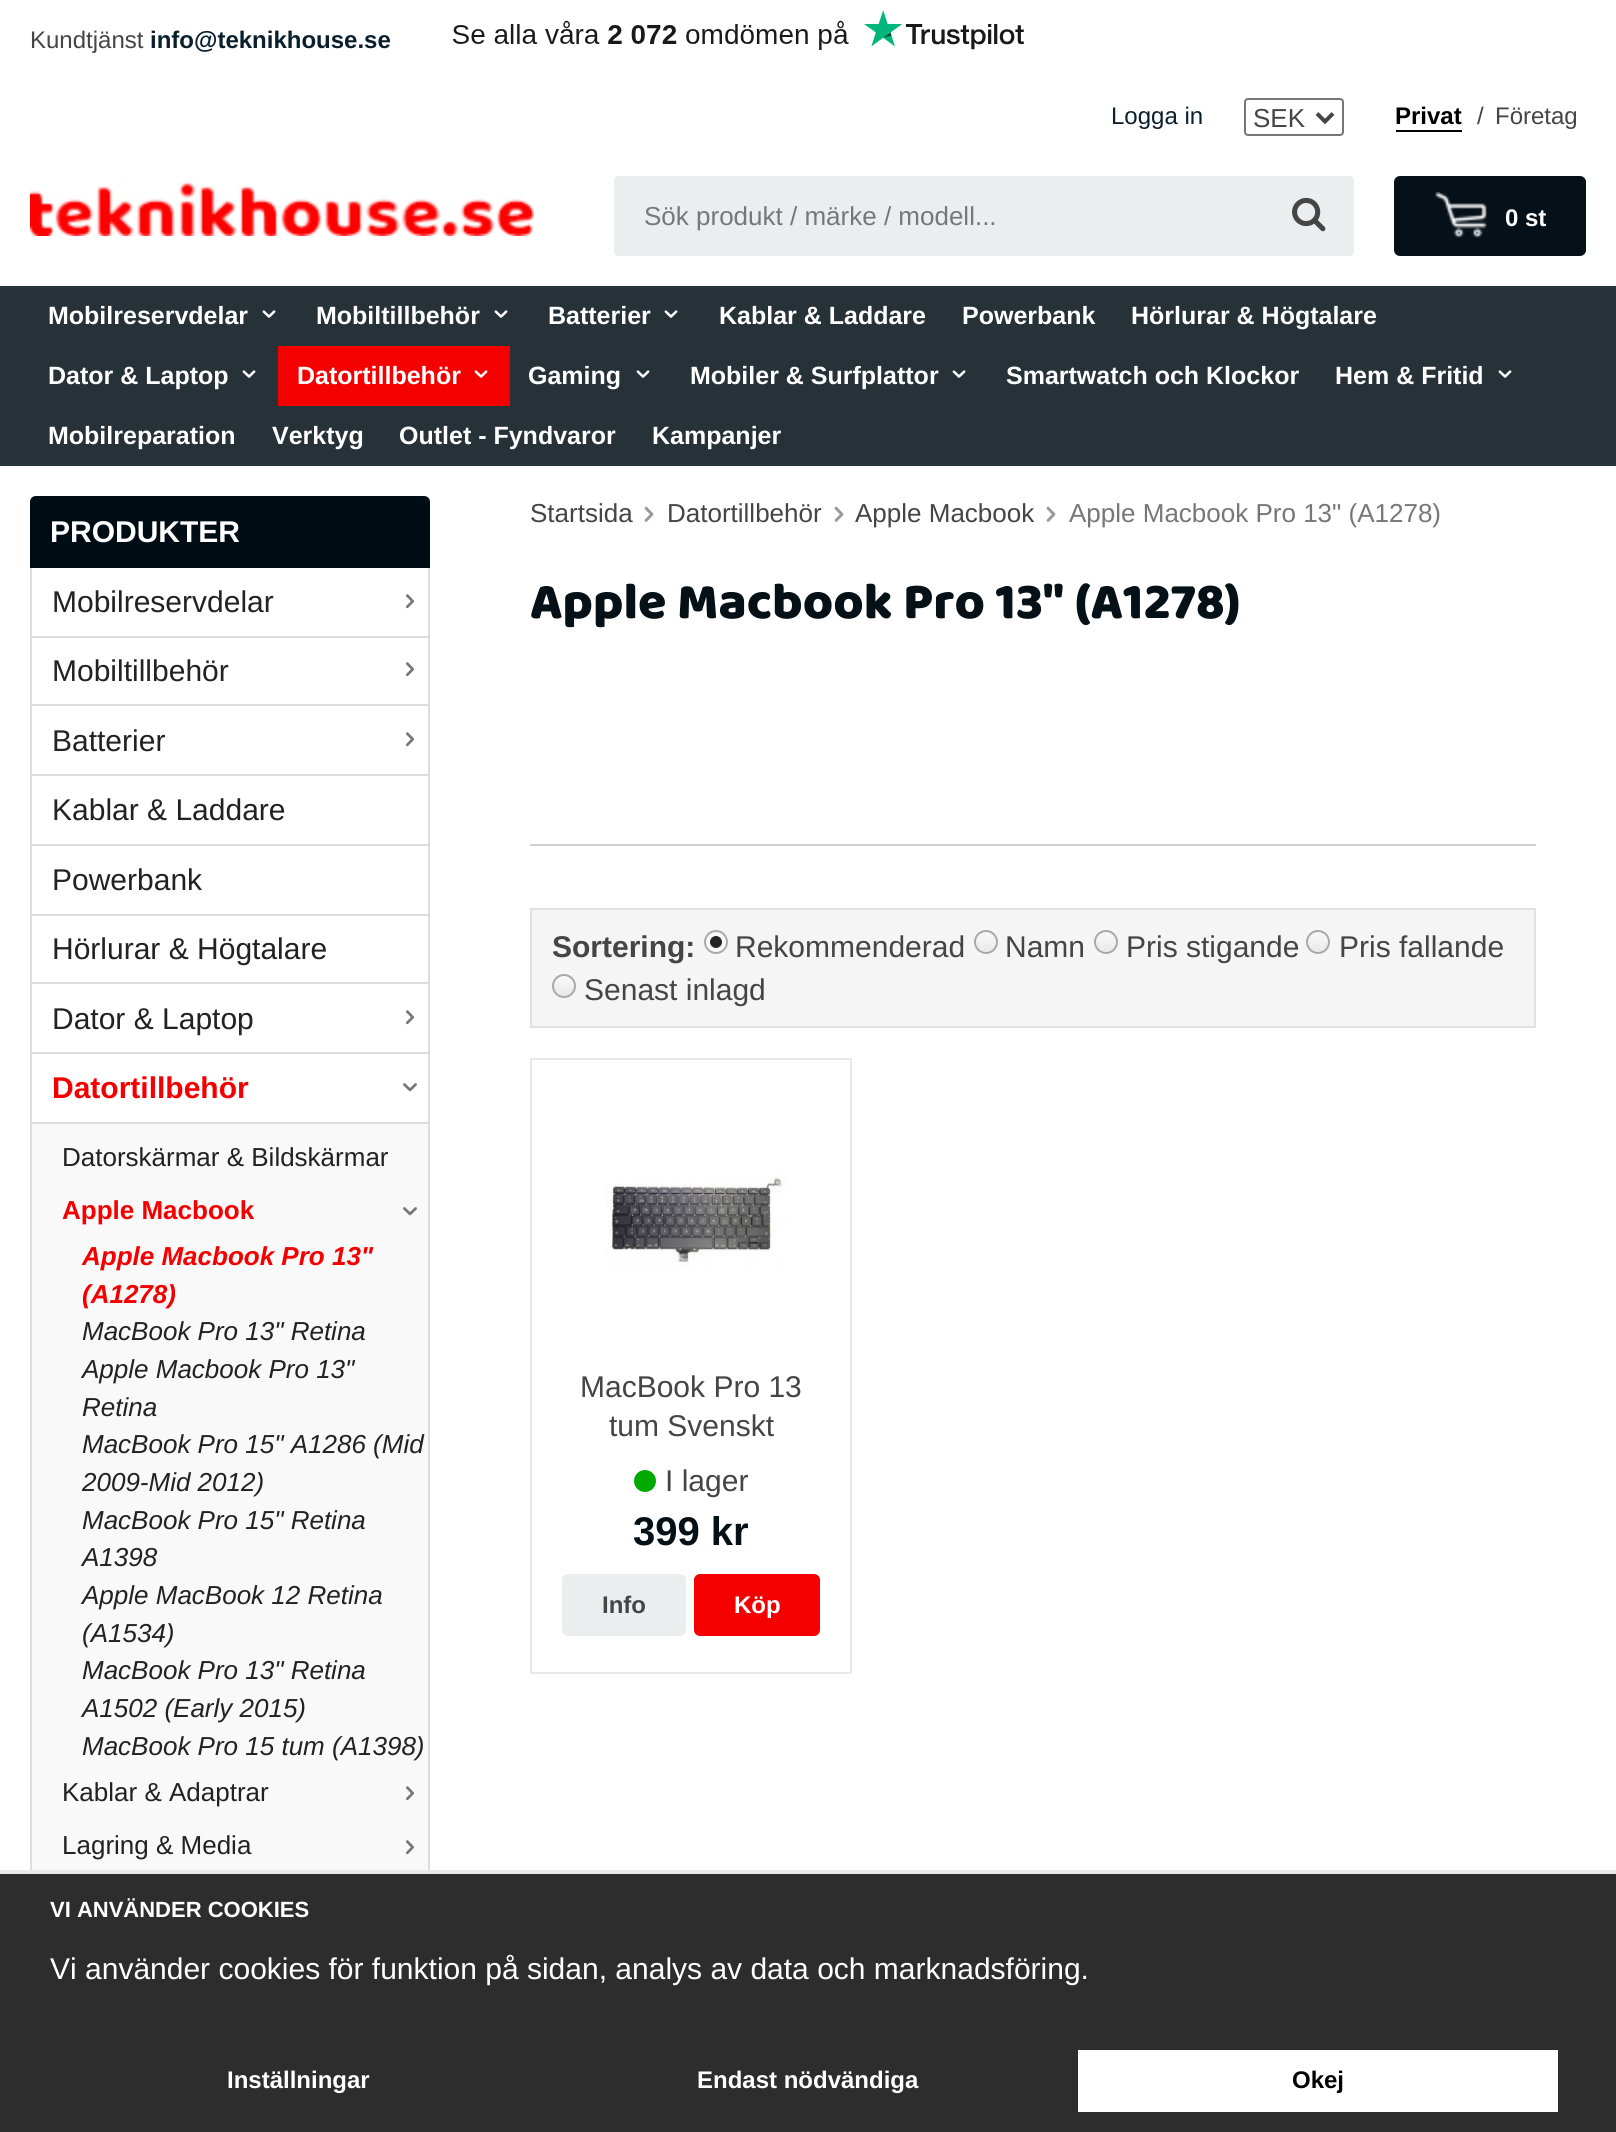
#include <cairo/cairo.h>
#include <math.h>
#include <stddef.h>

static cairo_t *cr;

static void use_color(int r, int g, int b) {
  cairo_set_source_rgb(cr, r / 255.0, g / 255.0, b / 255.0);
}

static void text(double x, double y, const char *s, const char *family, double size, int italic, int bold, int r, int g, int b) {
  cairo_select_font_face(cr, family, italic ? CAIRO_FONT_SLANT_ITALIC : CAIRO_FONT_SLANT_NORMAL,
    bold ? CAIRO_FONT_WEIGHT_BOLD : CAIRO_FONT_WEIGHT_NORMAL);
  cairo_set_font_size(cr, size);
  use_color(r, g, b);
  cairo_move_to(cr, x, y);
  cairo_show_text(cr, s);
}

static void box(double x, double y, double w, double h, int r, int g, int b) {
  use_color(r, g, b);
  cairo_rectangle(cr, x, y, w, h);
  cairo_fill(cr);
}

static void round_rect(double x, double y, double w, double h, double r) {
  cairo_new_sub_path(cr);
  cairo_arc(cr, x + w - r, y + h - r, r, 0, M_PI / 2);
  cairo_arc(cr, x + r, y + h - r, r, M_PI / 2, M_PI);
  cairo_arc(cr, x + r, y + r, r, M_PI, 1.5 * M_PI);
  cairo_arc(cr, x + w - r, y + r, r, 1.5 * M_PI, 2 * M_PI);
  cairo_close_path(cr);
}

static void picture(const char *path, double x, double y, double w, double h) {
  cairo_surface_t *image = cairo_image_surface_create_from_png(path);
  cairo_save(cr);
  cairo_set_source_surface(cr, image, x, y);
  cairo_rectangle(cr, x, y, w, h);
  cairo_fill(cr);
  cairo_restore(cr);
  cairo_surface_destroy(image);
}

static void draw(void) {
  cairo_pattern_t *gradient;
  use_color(255, 255, 255);
  cairo_paint(cr);
  picture("img_01.png", 452, 10, 572, 40);
  round_rect(1245, 99, 98, 36, 3);
  use_color(118, 118, 118);
  cairo_stroke(cr);
  cairo_new_path(cr);
  cairo_move_to(cr, 1317, 113.5);
  cairo_line_to(cr, 1325, 121.5);
  cairo_line_to(cr, 1333, 113.5);
  use_color(69, 69, 69);
  cairo_set_line_width(cr, 4);
  cairo_stroke(cr);
  box(1396, 130, 66, 2, 0, 0, 0);
  picture("img_02.png", 30, 181, 504, 55);
  use_color(235, 238, 239);
  round_rect(614, 176, 740, 80, 4);
  cairo_fill(cr);
  picture("img_03.png", 1292, 197, 34, 35);
  use_color(5, 16, 24);
  round_rect(1394, 176, 192, 80, 6);
  cairo_fill(cr);
  picture("img_04.png", 1435, 192, 52, 46);
  box(0, 286, 1616, 180, 39, 49, 56);
  picture("img_05.png", 262, 310, 14, 8);
  picture("img_05.png", 494, 310, 14, 8);
  picture("img_05.png", 664, 310, 14, 8);
  picture("img_05.png", 242, 370, 14, 8);
  box(278, 346, 232, 60, 245, 0, 0);
  picture("img_06.png", 474, 370, 14, 8);
  picture("img_05.png", 636, 370, 14, 8);
  picture("img_05.png", 952, 370, 14, 8);
  picture("img_05.png", 1498, 370, 14, 8);
  use_color(1, 13, 21);
  cairo_new_path(cr);
  cairo_move_to(cr, 36, 496);
  cairo_line_to(cr, 424, 496);
  cairo_curve_to(cr, 427.5, 496, 430, 498.5, 430, 502);
  cairo_line_to(cr, 430, 568);
  cairo_line_to(cr, 30, 568);
  cairo_line_to(cr, 30, 502);
  cairo_curve_to(cr, 30, 498.5, 32.5, 496, 36, 496);
  cairo_close_path(cr);
  cairo_fill(cr);
  box(428, 568, 2, 1302, 220, 220, 220);
  box(30, 568, 2, 1302, 220, 220, 220);
  box(32, 636, 396, 2, 220, 220, 220);
  picture("img_07.png", 406, 594, 8, 15);
  box(32, 704, 396, 2, 220, 220, 220);
  picture("img_07.png", 406, 662, 8, 15);
  box(32, 774, 396, 2, 220, 220, 220);
  picture("img_07.png", 406, 732, 8, 15);
  box(32, 844, 396, 2, 220, 220, 220);
  box(32, 914, 396, 2, 220, 220, 220);
  box(32, 982, 396, 2, 220, 220, 220);
  box(32, 1052, 396, 2, 220, 220, 220);
  picture("img_07.png", 406, 1010, 8, 15);
  box(32, 1122, 396, 2, 220, 220, 220);
  picture("img_08.png", 403, 1083, 14, 9);
  box(32, 1124, 396, 746, 249, 249, 249);
  picture("img_09.png", 403, 1207, 14, 9);
  picture("img_10.png", 406, 1786, 8, 15);
  picture("img_10.png", 406, 1840, 8, 15);
  picture("img_11.png", 644, 506, 10, 16);
  picture("img_11.png", 834, 506, 10, 16);
  picture("img_11.png", 1046, 506, 10, 16);
  box(530, 844, 1006, 2, 207, 207, 207);
  use_color(245, 245, 245);
  cairo_rectangle(cr, 531, 909, 1004, 118);
  cairo_fill_preserve(cr);
  use_color(225, 225, 225);
  cairo_set_line_width(cr, 2);
  cairo_stroke(cr);
  use_color(249, 249, 249);
  cairo_arc(cr, 716, 942, 12, 0, 2 * M_PI);
  cairo_fill(cr);
  picture("img_12.png", 710, 936, 12, 12);
  cairo_arc(cr, 716, 942, 11, 0, 2 * M_PI);
  use_color(169, 169, 169);
  cairo_stroke(cr);
  cairo_save(cr);
  round_rect(974, 930, 24, 24, 12);
  cairo_clip(cr);
  gradient = cairo_pattern_create_linear(986, 932, 986, 952);
  cairo_pattern_add_color_stop_rgba(gradient, 0, 0.976, 0.976, 0.976, 1);
  cairo_pattern_add_color_stop_rgba(gradient, 1, 0.914, 0.914, 0.914, 1);
  cairo_set_source(cr, gradient);
  cairo_pattern_destroy(gradient);
  cairo_rectangle(cr, 974, 932, 24, 20);
  cairo_fill(cr);
  cairo_restore(cr);
  cairo_arc(cr, 986, 942, 11, 0, 2 * M_PI);
  cairo_stroke(cr);
  cairo_save(cr);
  round_rect(1094, 930, 24, 24, 12);
  cairo_clip(cr);
  gradient = cairo_pattern_create_linear(1106, 932, 1106, 952);
  cairo_pattern_add_color_stop_rgba(gradient, 0, 0.976, 0.976, 0.976, 1);
  cairo_pattern_add_color_stop_rgba(gradient, 1, 0.914, 0.914, 0.914, 1);
  cairo_set_source(cr, gradient);
  cairo_pattern_destroy(gradient);
  cairo_rectangle(cr, 1094, 932, 24, 20);
  cairo_fill(cr);
  cairo_restore(cr);
  cairo_arc(cr, 1106, 942, 11, 0, 2 * M_PI);
  cairo_stroke(cr);
  cairo_save(cr);
  round_rect(1306, 930, 24, 24, 12);
  cairo_clip(cr);
  gradient = cairo_pattern_create_linear(1318, 932, 1318, 952);
  cairo_pattern_add_color_stop_rgba(gradient, 0, 0.976, 0.976, 0.976, 1);
  cairo_pattern_add_color_stop_rgba(gradient, 1, 0.914, 0.914, 0.914, 1);
  cairo_set_source(cr, gradient);
  cairo_pattern_destroy(gradient);
  cairo_rectangle(cr, 1306, 932, 24, 20);
  cairo_fill(cr);
  cairo_restore(cr);
  cairo_arc(cr, 1318, 942, 11, 0, 2 * M_PI);
  cairo_stroke(cr);
  cairo_save(cr);
  round_rect(552, 974, 24, 24, 12);
  cairo_clip(cr);
  gradient = cairo_pattern_create_linear(564, 976, 564, 996);
  cairo_pattern_add_color_stop_rgba(gradient, 0, 0.976, 0.976, 0.976, 1);
  cairo_pattern_add_color_stop_rgba(gradient, 1, 0.914, 0.914, 0.914, 1);
  cairo_set_source(cr, gradient);
  cairo_pattern_destroy(gradient);
  cairo_rectangle(cr, 552, 976, 24, 20);
  cairo_fill(cr);
  cairo_restore(cr);
  cairo_arc(cr, 564, 986, 11, 0, 2 * M_PI);
  cairo_stroke(cr);
  cairo_rectangle(cr, 531, 1059, 320, 614);
  use_color(233, 233, 233);
  cairo_stroke(cr);
  picture("img_13.png", 606, 1175, 182, 92);
  use_color(0, 170, 0);
  cairo_arc(cr, 645, 1481, 11, 0, 2 * M_PI);
  cairo_fill(cr);
  use_color(235, 238, 239);
  round_rect(562, 1574, 124, 62, 6);
  cairo_fill(cr);
  use_color(245, 0, 0);
  round_rect(694, 1574, 126, 62, 6);
  cairo_fill(cr);
  box(0, 1874, 1616, 258, 45, 45, 45);
  box(0, 1870, 1616, 4, 233, 233, 233);
  box(1078, 2050, 480, 62, 255, 255, 255);
  text(30, 48, "Kundtjänst", "Arimo", 24, 0, 0, 69, 69, 69);
  text(150, 48, "info@teknikhouse.se", "Arimo", 24, 0, 1, 10, 31, 46);
  text(1111, 124, "Logga in", "Arimo", 24, 0, 0, 10, 31, 46);
  text(1253, 127, "SEK", "Arimo", 26, 0, 0, 69, 69, 69);
  text(1395, 124, "Privat", "Arimo", 24, 0, 1, 0, 0, 0);
  text(1477, 124, "/", "Arimo", 24, 0, 0, 69, 69, 69);
  text(1495, 124, "Företag", "Arimo", 24, 0, 0, 69, 69, 69);
  text(644, 225, "Sök produkt / märke / modell...", "Arimo", 26, 0, 0, 119, 119, 119);
  text(1505, 226, "0 st", "Arimo", 24, 0, 1, 255, 255, 255);
  text(48, 324, "Mobilreservdelar", "Arimo", 25, 0, 1, 255, 255, 255);
  text(316, 324, "Mobiltillbehör", "Arimo", 25, 0, 1, 255, 255, 255);
  text(548, 324, "Batterier", "Arimo", 25, 0, 1, 255, 255, 255);
  text(719, 324, "Kablar & Laddare", "Arimo", 25, 0, 1, 255, 255, 255);
  text(962, 324, "Powerbank", "Arimo", 25, 0, 1, 255, 255, 255);
  text(1131, 324, "Hörlurar & Högtalare", "Arimo", 25, 0, 1, 255, 255, 255);
  text(48, 384, "Dator & Laptop", "Arimo", 25, 0, 1, 255, 255, 255);
  text(297, 384, "Datortillbehör", "Arimo", 25, 0, 1, 255, 255, 255);
  text(528, 384, "Gaming", "Arimo", 25, 0, 1, 255, 255, 255);
  text(690, 384, "Mobiler & Surfplattor", "Arimo", 25, 0, 1, 255, 255, 255);
  text(1006, 384, "Smartwatch och Klockor", "Arimo", 25, 0, 1, 255, 255, 255);
  text(1335, 384, "Hem & Fritid", "Arimo", 25, 0, 1, 255, 255, 255);
  text(48, 444, "Mobilreparation", "Arimo", 25, 0, 1, 255, 255, 255);
  text(272, 444, "Verktyg", "Arimo", 25, 0, 1, 255, 255, 255);
  text(399, 444, "Outlet - Fyndvaror", "Arimo", 25, 0, 1, 255, 255, 255);
  text(652, 444, "Kampanjer", "Arimo", 25, 0, 1, 255, 255, 255);
  text(50, 542, "PRODUKTER", "Arimo", 30, 0, 1, 255, 255, 255);
  text(52, 612, "Mobilreservdelar", "Arimo", 30, 0, 0, 34, 34, 34);
  text(52, 681, "Mobiltillbehör", "Arimo", 30, 0, 0, 34, 34, 34);
  text(52, 751, "Batterier", "Arimo", 30, 0, 0, 34, 34, 34);
  text(52, 820, "Kablar & Laddare", "Arimo", 30, 0, 0, 34, 34, 34);
  text(52, 890, "Powerbank", "Arimo", 30, 0, 0, 34, 34, 34);
  text(52, 959, "Hörlurar & Högtalare", "Arimo", 30, 0, 0, 34, 34, 34);
  text(52, 1029, "Dator & Laptop", "Arimo", 30, 0, 0, 34, 34, 34);
  text(52, 1098, "Datortillbehör", "Arimo", 30, 0, 1, 245, 0, 0);
  text(62, 1166, "Datorskärmar & Bildskärmar", "Arimo", 26, 0, 0, 34, 34, 34);
  text(62, 1219, "Apple Macbook", "Arimo", 26, 0, 1, 245, 0, 0);
  text(82, 1265, "Apple Macbook Pro 13\"", "Arimo", 26, 1, 1, 245, 0, 0);
  text(82, 1303, "(A1278)", "Arimo", 26, 1, 1, 245, 0, 0);
  text(82, 1340, "MacBook Pro 13\" Retina", "Arimo", 26, 1, 0, 34, 34, 34);
  text(82, 1378, "Apple Macbook Pro 13\"", "Arimo", 26, 1, 0, 34, 34, 34);
  text(82, 1416, "Retina", "Arimo", 26, 1, 0, 34, 34, 34);
  text(82, 1453, "MacBook Pro 15\" A1286 (Mid", "Arimo", 26, 1, 0, 34, 34, 34);
  text(82, 1491, "2009-Mid 2012)", "Arimo", 26, 1, 0, 34, 34, 34);
  text(82, 1529, "MacBook Pro 15\" Retina", "Arimo", 26, 1, 0, 34, 34, 34);
  text(82, 1566, "A1398", "Arimo", 26, 1, 0, 34, 34, 34);
  text(82, 1604, "Apple MacBook 12 Retina", "Arimo", 26, 1, 0, 34, 34, 34);
  text(82, 1642, "(A1534)", "Arimo", 26, 1, 0, 34, 34, 34);
  text(82, 1679, "MacBook Pro 13\" Retina", "Arimo", 26, 1, 0, 34, 34, 34);
  text(82, 1717, "A1502 (Early 2015)", "Arimo", 26, 1, 0, 34, 34, 34);
  text(82, 1755, "MacBook Pro 15 tum (A1398)", "Arimo", 26, 1, 0, 34, 34, 34);
  text(62, 1801, "Kablar & Adaptrar", "Arimo", 26, 0, 0, 34, 34, 34);
  text(62, 1854, "Lagring & Media", "Arimo", 26, 0, 0, 34, 34, 34);
  text(530, 522, "Startsida", "Arimo", 26, 0, 0, 69, 69, 69);
  text(667, 522, "Datortillbehör", "Arimo", 26, 0, 0, 69, 69, 69);
  text(855, 522, "Apple Macbook", "Arimo", 26, 0, 0, 69, 69, 69);
  text(1069, 522, "Apple Macbook Pro 13\" (A1278)", "Arimo", 26, 0, 0, 119, 119, 119);
  text(530, 618, "Apple Macbook Pro 13\" (A1278)", "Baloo", 52, 0, 0, 5, 16, 23);
  text(552, 957, "Sortering:", "Arimo", 30, 0, 1, 69, 69, 69);
  text(735, 957, "Rekommenderad", "Arimo", 30, 0, 0, 69, 69, 69);
  text(1005, 957, "Namn", "Arimo", 30, 0, 0, 69, 69, 69);
  text(1126, 957, "Pris stigande", "Arimo", 30, 0, 0, 69, 69, 69);
  text(1339, 957, "Pris fallande", "Arimo", 30, 0, 0, 69, 69, 69);
  text(584, 1000, "Senast inlagd", "Arimo", 30, 0, 0, 69, 69, 69);
  text(580, 1397, "MacBook Pro 13", "Arimo", 30, 0, 0, 69, 69, 69);
  text(609, 1436, "tum Svenskt", "Arimo", 30, 0, 0, 69, 69, 69);
  text(665, 1491, "I lager", "Arimo", 30, 0, 0, 69, 69, 69);
  text(633, 1545, "399 kr", "Arimo", 40, 0, 1, 5, 16, 23);
  text(602, 1613, "Info", "Arimo", 24, 0, 1, 69, 69, 69);
  text(734, 1613, "Köp", "Arimo", 24, 0, 1, 255, 255, 255);
  text(50, 1917, "VI ANVÄNDER COOKIES", "Arimo", 22, 0, 1, 255, 255, 255);
  text(50, 1979, "Vi använder cookies för funktion på sidan, analys av data och marknadsföring.", "Arimo", 30, 0, 0, 255, 255, 255);
  text(227, 2088, "Inställningar", "Arimo", 24, 0, 1, 255, 255, 255);
  text(697, 2088, "Endast nödvändiga", "Arimo", 24, 0, 1, 255, 255, 255);
  text(1292, 2088, "Okej", "Arimo", 24, 0, 1, 0, 0, 0);
}

int main(void) {
  cairo_surface_t *surface = cairo_image_surface_create(CAIRO_FORMAT_RGB24, 1616, 2132);
  cr = cairo_create(surface);
  cairo_font_options_t *options = cairo_font_options_create();
  cairo_font_options_set_hint_metrics(options, CAIRO_HINT_METRICS_OFF);
  cairo_font_options_set_hint_style(options, CAIRO_HINT_STYLE_NONE);
  cairo_set_font_options(cr, options);
  cairo_set_miter_limit(cr, 4);
  draw();
  cairo_surface_write_to_png(surface, "out.png");
  cairo_font_options_destroy(options);
  cairo_destroy(cr);
  cairo_surface_destroy(surface);
  return 0;
}
